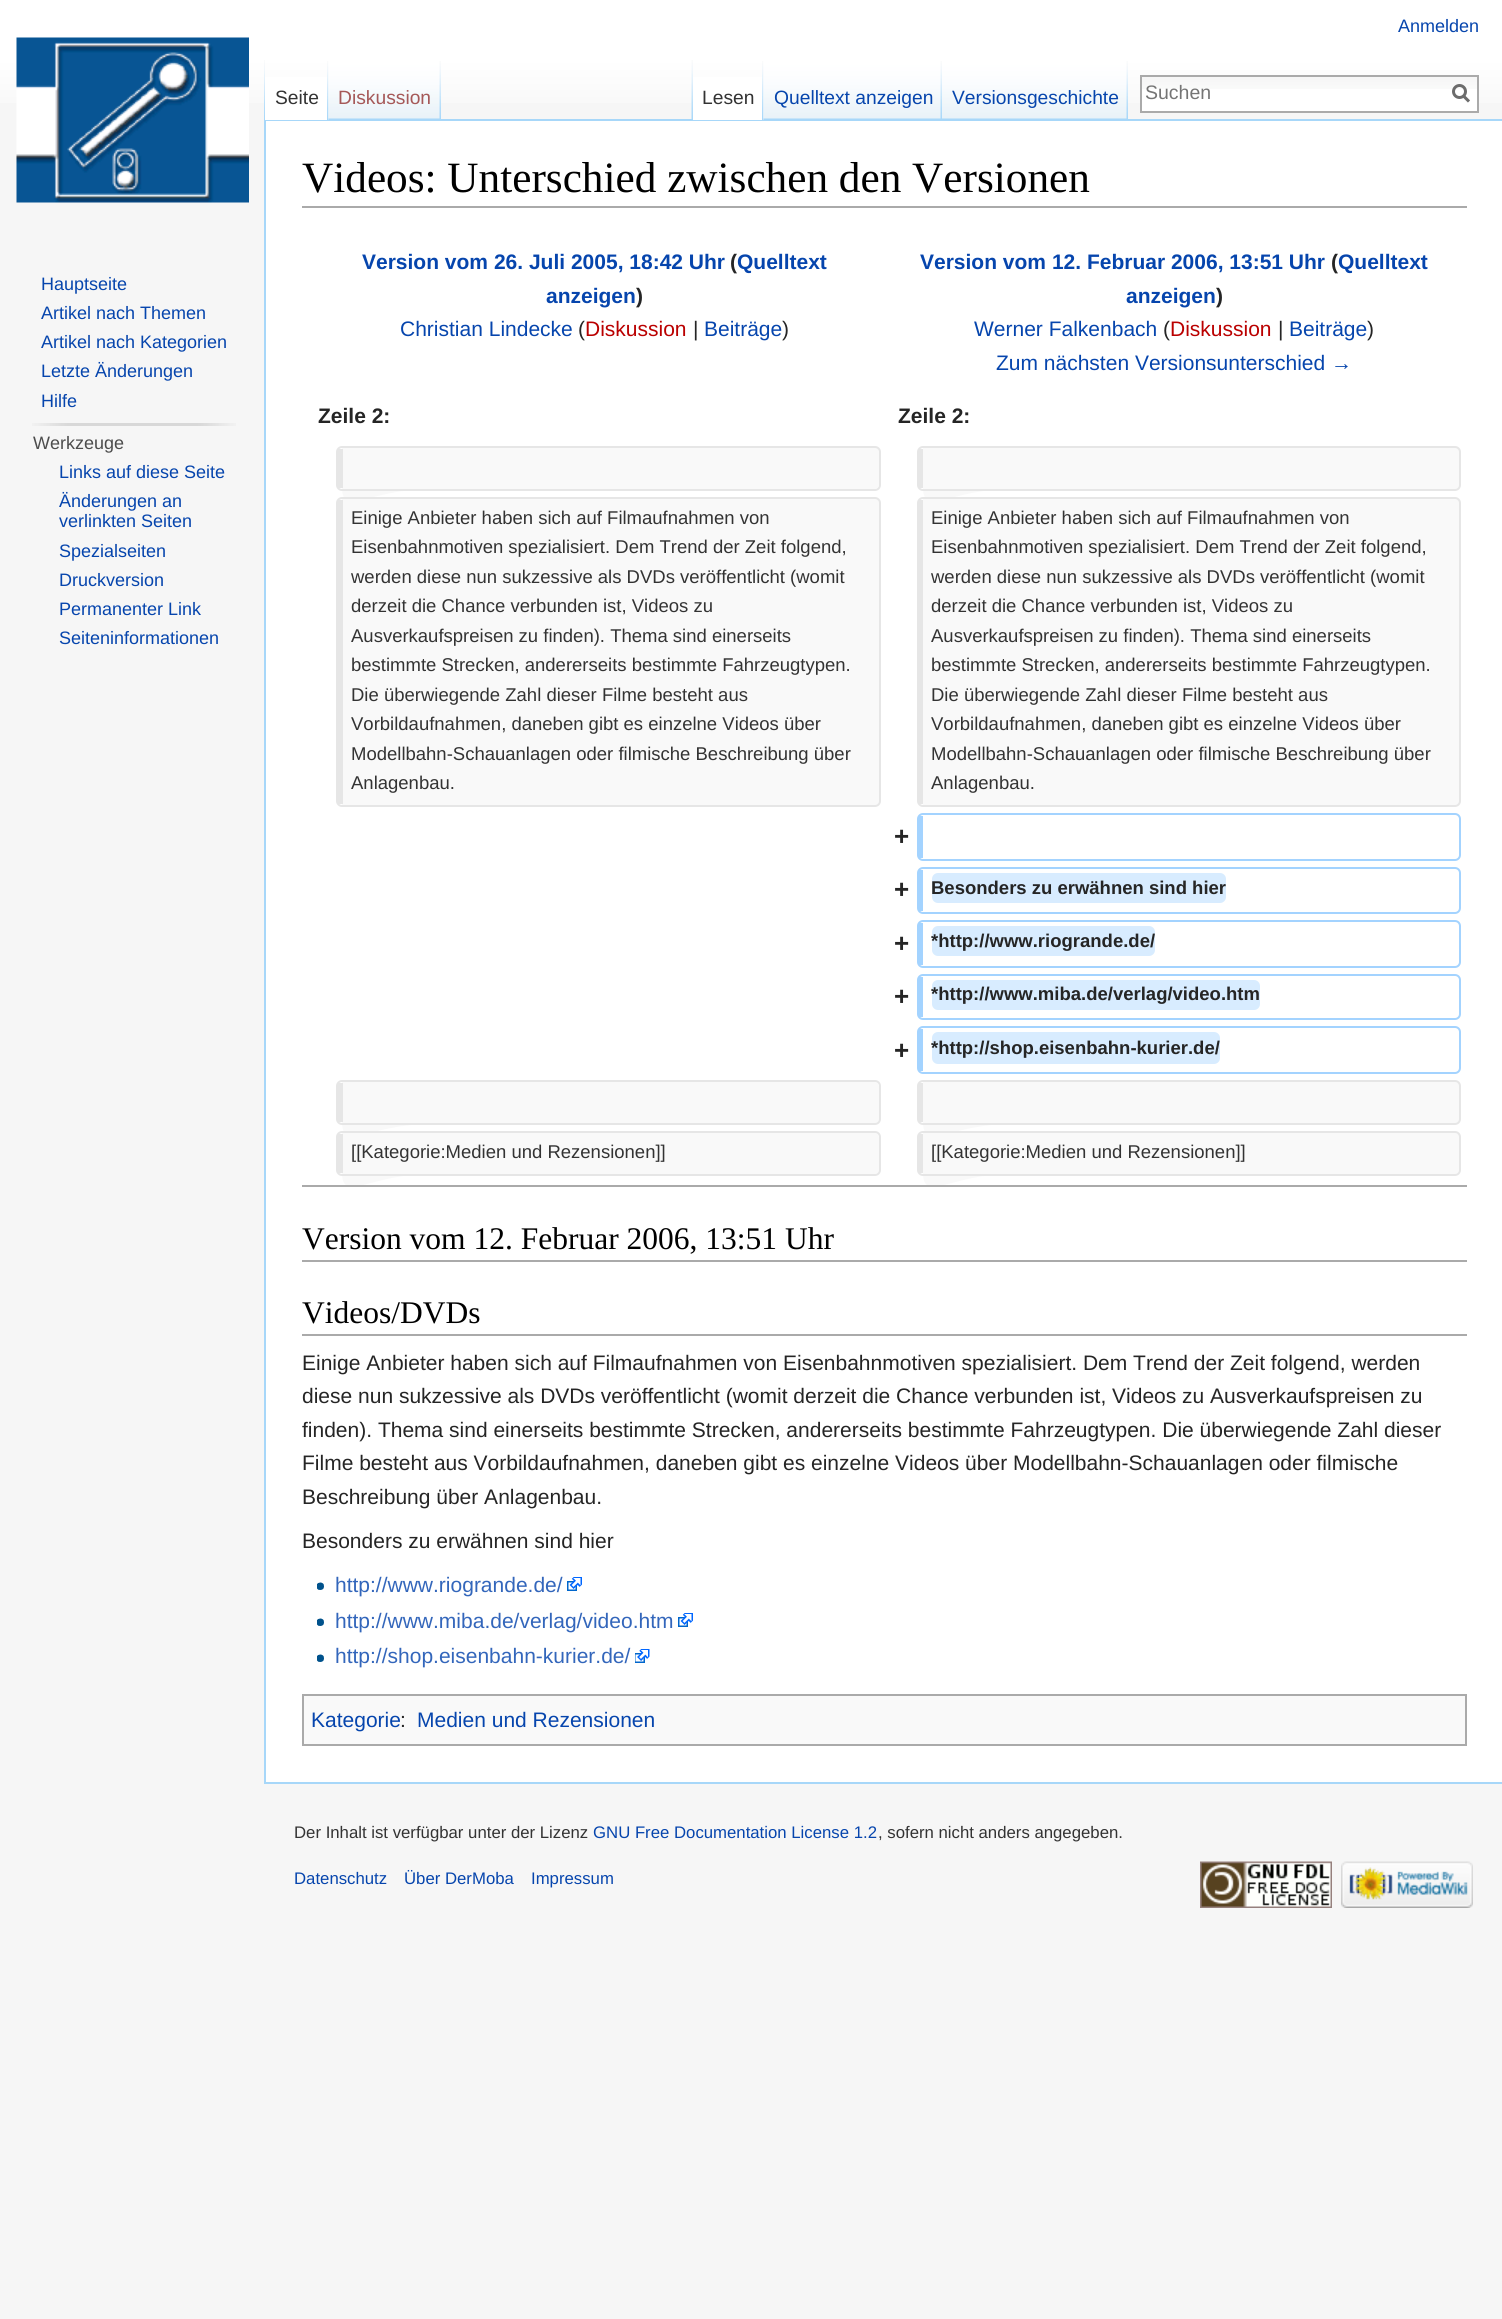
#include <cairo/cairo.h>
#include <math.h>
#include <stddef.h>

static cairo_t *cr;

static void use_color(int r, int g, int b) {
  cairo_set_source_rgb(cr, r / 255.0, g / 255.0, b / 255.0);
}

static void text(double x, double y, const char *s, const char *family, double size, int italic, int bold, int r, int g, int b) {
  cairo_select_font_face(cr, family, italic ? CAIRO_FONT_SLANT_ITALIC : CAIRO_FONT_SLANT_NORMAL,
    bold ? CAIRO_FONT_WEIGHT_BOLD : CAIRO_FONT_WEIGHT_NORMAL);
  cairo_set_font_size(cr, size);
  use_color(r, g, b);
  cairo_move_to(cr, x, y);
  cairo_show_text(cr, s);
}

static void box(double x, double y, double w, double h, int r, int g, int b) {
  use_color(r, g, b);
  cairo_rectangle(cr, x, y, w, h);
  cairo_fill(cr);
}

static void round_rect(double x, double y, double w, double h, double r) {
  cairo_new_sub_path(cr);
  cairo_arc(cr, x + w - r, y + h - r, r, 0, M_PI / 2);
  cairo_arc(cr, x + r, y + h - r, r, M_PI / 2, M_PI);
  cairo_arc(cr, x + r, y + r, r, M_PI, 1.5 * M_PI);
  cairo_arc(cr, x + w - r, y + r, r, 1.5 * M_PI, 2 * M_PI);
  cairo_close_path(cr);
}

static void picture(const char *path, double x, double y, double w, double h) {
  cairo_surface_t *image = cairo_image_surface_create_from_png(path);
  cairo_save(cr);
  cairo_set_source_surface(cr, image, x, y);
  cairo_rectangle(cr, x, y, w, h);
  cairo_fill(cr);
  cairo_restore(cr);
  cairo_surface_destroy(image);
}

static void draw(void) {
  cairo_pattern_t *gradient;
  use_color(246, 246, 246);
  cairo_paint(cr);
  gradient = cairo_pattern_create_linear(752, 0, 752, 120);
  cairo_pattern_add_color_stop_rgba(gradient, 0.5, 1, 1, 1, 1);
  cairo_pattern_add_color_stop_rgba(gradient, 1, 0.965, 0.965, 0.965, 1);
  cairo_set_source(cr, gradient);
  cairo_pattern_destroy(gradient);
  cairo_rectangle(cr, 0, 0, 1502, 103);
  cairo_fill(cr);
  picture("img_01.png", 264, 60, 1, 59);
  box(264, 119, 1238, 2, 167, 215, 249);
  box(264, 1782, 1238, 2, 167, 215, 249);
  box(264, 119, 2, 1665, 167, 215, 249);
  box(265, 77, 64, 43, 255, 255, 255);
  picture("img_02.png", 327, 61, 2, 59);
  picture("img_03.png", 328, 60, 113, 60);
  picture("img_04.png", 439, 61, 2, 58);
  picture("img_05.png", 691, 60, 2, 59);
  box(693, 77, 71, 43, 255, 255, 255);
  picture("img_02.png", 762, 61, 2, 59);
  picture("img_06.png", 763, 60, 179, 60);
  picture("img_04.png", 940, 61, 2, 58);
  picture("img_07.png", 942, 60, 186, 60);
  picture("img_04.png", 1126, 61, 2, 58);
  box(1142, 89, 335, 22, 255, 255, 255);
  picture("img_08.png", 1142, 77, 335, 12);
  cairo_rectangle(cr, 1141, 76, 337, 36);
  use_color(170, 170, 170);
  cairo_stroke(cr);
  cairo_new_path(cr);
  cairo_move_to(cr, 1469, 101.5);
  cairo_line_to(cr, 1463, 95.5);
  use_color(108, 108, 108);
  cairo_set_line_width(cr, 3);
  cairo_stroke(cr);
  cairo_arc(cr, 1459.5, 91.5, 6, 0, 2 * M_PI);
  cairo_stroke(cr);
  picture("img_09.png", 16, 37, 233, 166);
  picture("img_10.png", 32, 423, 204, 3);
  box(266, 121, 1236, 1661, 255, 255, 255);
  box(302, 206, 1165, 2, 170, 170, 170);
  use_color(249, 249, 249);
  cairo_new_path(cr);
  cairo_move_to(cr, 342, 447);
  cairo_line_to(cr, 875, 447);
  cairo_curve_to(cr, 881, 448, 879, 459, 879, 463);
  cairo_line_to(cr, 879, 484);
  cairo_curve_to(cr, 879, 487, 877, 489, 874, 489);
  cairo_line_to(cr, 431, 489);
  cairo_curve_to(cr, 369, 489, 342, 518, 342, 487);
  cairo_close_path(cr);
  cairo_fill(cr);
  round_rect(337, 447, 543, 43, 5);
  use_color(230, 230, 230);
  cairo_set_line_width(cr, 2);
  cairo_stroke(cr);
  box(338, 449, 5, 39, 230, 230, 230);
  use_color(249, 249, 249);
  cairo_new_path(cr);
  cairo_move_to(cr, 923, 447);
  cairo_line_to(cr, 1456, 447);
  cairo_curve_to(cr, 1462, 448, 1460, 459, 1460, 463);
  cairo_line_to(cr, 1460, 484);
  cairo_curve_to(cr, 1459, 487, 1457, 489, 1455, 489);
  cairo_line_to(cr, 1011, 489);
  cairo_curve_to(cr, 950, 489, 923, 518, 923, 487);
  cairo_close_path(cr);
  cairo_fill(cr);
  round_rect(918, 447, 542, 43, 5);
  use_color(230, 230, 230);
  cairo_stroke(cr);
  box(919, 449, 4, 39, 230, 230, 230);
  use_color(249, 249, 249);
  cairo_new_path(cr);
  cairo_move_to(cr, 342, 498);
  cairo_line_to(cr, 874, 498);
  cairo_curve_to(cr, 877, 498, 879, 500, 879, 503);
  cairo_line_to(cr, 879, 801);
  cairo_curve_to(cr, 879, 803, 877, 806, 874, 806);
  cairo_line_to(cr, 342, 806);
  cairo_close_path(cr);
  cairo_fill(cr);
  round_rect(337, 498, 543, 308, 5);
  use_color(230, 230, 230);
  cairo_stroke(cr);
  box(338, 500, 5, 304, 230, 230, 230);
  use_color(249, 249, 249);
  cairo_new_path(cr);
  cairo_move_to(cr, 923, 498);
  cairo_line_to(cr, 1455, 498);
  cairo_curve_to(cr, 1457, 498, 1460, 500, 1460, 503);
  cairo_line_to(cr, 1460, 801);
  cairo_curve_to(cr, 1460, 803, 1457, 806, 1455, 806);
  cairo_line_to(cr, 923, 806);
  cairo_close_path(cr);
  cairo_fill(cr);
  round_rect(918, 498, 542, 308, 5);
  use_color(230, 230, 230);
  cairo_stroke(cr);
  box(919, 500, 4, 304, 230, 230, 230);
  round_rect(918, 814, 542, 46, 5);
  use_color(163, 211, 255);
  cairo_stroke(cr);
  box(919, 816, 4, 42, 163, 211, 255);
  round_rect(918, 868, 542, 45, 5);
  cairo_stroke(cr);
  box(919, 870, 4, 41, 163, 211, 255);
  use_color(216, 236, 255);
  round_rect(932, 873, 294, 30, 6);
  cairo_fill(cr);
  round_rect(918, 921, 542, 46, 5);
  use_color(163, 211, 255);
  cairo_stroke(cr);
  box(919, 923, 4, 42, 163, 211, 255);
  use_color(216, 236, 255);
  round_rect(932, 926, 223, 30, 6);
  cairo_fill(cr);
  round_rect(918, 975, 542, 44, 5);
  use_color(163, 211, 255);
  cairo_stroke(cr);
  box(919, 977, 4, 40, 163, 211, 255);
  use_color(216, 236, 255);
  round_rect(932, 980, 328, 30, 6);
  cairo_fill(cr);
  round_rect(918, 1027, 542, 46, 5);
  use_color(163, 211, 255);
  cairo_stroke(cr);
  box(919, 1029, 4, 42, 163, 211, 255);
  use_color(216, 236, 255);
  round_rect(932, 1032, 288, 32, 6);
  cairo_fill(cr);
  use_color(249, 249, 249);
  cairo_new_path(cr);
  cairo_move_to(cr, 342, 1082);
  cairo_line_to(cr, 875, 1082);
  cairo_curve_to(cr, 881, 1083, 879, 1093, 879, 1097);
  cairo_line_to(cr, 879, 1119);
  cairo_curve_to(cr, 879, 1121, 877, 1123, 874, 1124);
  cairo_line_to(cr, 431, 1124);
  cairo_curve_to(cr, 369, 1124, 342, 1153, 342, 1121);
  cairo_close_path(cr);
  cairo_fill(cr);
  round_rect(337, 1081, 543, 43, 5);
  use_color(230, 230, 230);
  cairo_stroke(cr);
  box(338, 1083, 5, 39, 230, 230, 230);
  use_color(249, 249, 249);
  cairo_new_path(cr);
  cairo_move_to(cr, 923, 1082);
  cairo_line_to(cr, 1456, 1082);
  cairo_curve_to(cr, 1462, 1083, 1460, 1093, 1460, 1097);
  cairo_line_to(cr, 1460, 1119);
  cairo_curve_to(cr, 1459, 1121, 1457, 1123, 1455, 1124);
  cairo_line_to(cr, 1011, 1124);
  cairo_curve_to(cr, 950, 1124, 923, 1153, 923, 1121);
  cairo_close_path(cr);
  cairo_fill(cr);
  round_rect(918, 1081, 542, 43, 5);
  use_color(230, 230, 230);
  cairo_stroke(cr);
  box(919, 1083, 4, 39, 230, 230, 230);
  use_color(249, 249, 249);
  cairo_new_path(cr);
  cairo_move_to(cr, 342, 1132);
  cairo_line_to(cr, 875, 1133);
  cairo_curve_to(cr, 881, 1134, 879, 1144, 879, 1148);
  cairo_line_to(cr, 879, 1170);
  cairo_curve_to(cr, 879, 1172, 877, 1174, 874, 1174);
  cairo_line_to(cr, 431, 1174);
  cairo_curve_to(cr, 369, 1174, 342, 1204, 342, 1172);
  cairo_close_path(cr);
  cairo_fill(cr);
  round_rect(337, 1132, 543, 43, 5);
  use_color(230, 230, 230);
  cairo_stroke(cr);
  box(338, 1134, 5, 39, 230, 230, 230);
  use_color(249, 249, 249);
  cairo_new_path(cr);
  cairo_move_to(cr, 923, 1132);
  cairo_line_to(cr, 1456, 1133);
  cairo_curve_to(cr, 1462, 1134, 1460, 1144, 1460, 1148);
  cairo_line_to(cr, 1460, 1170);
  cairo_curve_to(cr, 1459, 1172, 1457, 1174, 1455, 1174);
  cairo_line_to(cr, 1011, 1174);
  cairo_curve_to(cr, 950, 1174, 923, 1204, 923, 1172);
  cairo_close_path(cr);
  cairo_fill(cr);
  round_rect(918, 1132, 542, 43, 5);
  use_color(230, 230, 230);
  cairo_stroke(cr);
  box(919, 1134, 4, 39, 230, 230, 230);
  box(302, 1185, 1165, 2, 170, 170, 170);
  box(302, 1260, 1165, 2, 170, 170, 170);
  box(302, 1334, 1165, 2, 170, 170, 170);
  picture("img_11.png", 317, 1582, 7, 8);
  picture("img_12.png", 567, 1577, 15, 14);
  picture("img_11.png", 317, 1618, 7, 8);
  picture("img_12.png", 678, 1613, 15, 14);
  picture("img_11.png", 317, 1654, 7, 8);
  picture("img_13.png", 635, 1649, 15, 14);
  use_color(249, 249, 249);
  cairo_rectangle(cr, 303, 1695, 1163, 50);
  cairo_fill_preserve(cr);
  use_color(170, 170, 170);
  cairo_stroke(cr);
  picture("img_14.png", 1200, 1861, 132, 47);
  picture("img_15.png", 1341, 1861, 132, 47);
  text(1398, 32, "Anmelden", "Liberation Sans", 18, 0, 0, 6, 69, 173);
  text(275, 104, "Seite", "Liberation Sans", 19.25, 0, 0, 51, 51, 51);
  text(338, 104, "Diskussion", "Liberation Sans", 19.25, 0, 0, 165, 88, 88);
  text(702, 104, "Lesen", "Liberation Sans", 19.25, 0, 0, 51, 51, 51);
  text(774, 104, "Quelltext anzeigen", "Liberation Sans", 19.25, 0, 0, 6, 69, 173);
  text(952, 104, "Versionsgeschichte", "Liberation Sans", 19.25, 0, 0, 6, 69, 173);
  text(1145, 99, "Suchen", "Liberation Sans", 19.5, 0, 0, 117, 117, 117);
  text(41, 290, "Hauptseite", "Liberation Sans", 18, 0, 0, 6, 69, 173);
  text(41, 319, "Artikel nach Themen", "Liberation Sans", 18, 0, 0, 6, 69, 173);
  text(41, 348, "Artikel nach Kategorien", "Liberation Sans", 18, 0, 0, 6, 69, 173);
  text(41, 377, "Letzte Änderungen", "Liberation Sans", 18, 0, 0, 6, 69, 173);
  text(41, 407, "Hilfe", "Liberation Sans", 18, 0, 0, 6, 69, 173);
  text(33, 449, "Werkzeuge", "Liberation Sans", 18, 0, 0, 77, 77, 77);
  text(59, 478, "Links auf diese Seite", "Liberation Sans", 18, 0, 0, 6, 69, 173);
  text(59, 507, "Änderungen an", "Liberation Sans", 18, 0, 0, 6, 69, 173);
  text(59, 527, "verlinkten Seiten", "Liberation Sans", 18, 0, 0, 6, 69, 173);
  text(59, 557, "Spezialseiten", "Liberation Sans", 18, 0, 0, 6, 69, 173);
  text(59, 586, "Druckversion", "Liberation Sans", 18, 0, 0, 6, 69, 173);
  text(59, 615, "Permanenter Link", "Liberation Sans", 18, 0, 0, 6, 69, 173);
  text(59, 644, "Seiteninformationen", "Liberation Sans", 18, 0, 0, 6, 69, 173);
  text(302, 192, "Videos: Unterschied zwischen den Versionen", "Liberation Serif", 43.25, 0, 0, 0, 0, 0);
  text(362, 269, "Version vom 26. Juli 2005, 18:42 Uhr", "Liberation Sans", 21, 0, 1, 6, 69, 173);
  text(730, 269, "(", "Liberation Sans", 21, 0, 1, 37, 37, 37);
  text(737, 269, "Quelltext", "Liberation Sans", 21, 0, 1, 6, 69, 173);
  text(546, 303, "anzeigen", "Liberation Sans", 21, 0, 1, 6, 69, 173);
  text(636, 303, ")", "Liberation Sans", 21, 0, 1, 37, 37, 37);
  text(400, 336, "Christian Lindecke", "Liberation Sans", 21, 0, 0, 6, 69, 173);
  text(578, 336, "(", "Liberation Sans", 21, 0, 0, 37, 37, 37);
  text(585, 336, "Diskussion", "Liberation Sans", 21, 0, 0, 186, 0, 0);
  text(693, 336, "|", "Liberation Sans", 21, 0, 0, 37, 37, 37);
  text(704, 336, "Beiträge", "Liberation Sans", 21, 0, 0, 6, 69, 173);
  text(782, 336, ")", "Liberation Sans", 21, 0, 0, 37, 37, 37);
  text(920, 269, "Version vom 12. Februar 2006, 13:51 Uhr", "Liberation Sans", 21, 0, 1, 6, 69, 173);
  text(1331, 269, "(", "Liberation Sans", 21, 0, 1, 37, 37, 37);
  text(1338, 269, "Quelltext", "Liberation Sans", 21, 0, 1, 6, 69, 173);
  text(1126, 303, "anzeigen", "Liberation Sans", 21, 0, 1, 6, 69, 173);
  text(1216, 303, ")", "Liberation Sans", 21, 0, 1, 37, 37, 37);
  text(974, 336, "Werner Falkenbach", "Liberation Sans", 21, 0, 0, 6, 69, 173);
  text(1163, 336, "(", "Liberation Sans", 21, 0, 0, 37, 37, 37);
  text(1170, 336, "Diskussion", "Liberation Sans", 21, 0, 0, 186, 0, 0);
  text(1278, 336, "|", "Liberation Sans", 21, 0, 0, 37, 37, 37);
  text(1289, 336, "Beiträge", "Liberation Sans", 21, 0, 0, 6, 69, 173);
  text(1367, 336, ")", "Liberation Sans", 21, 0, 0, 37, 37, 37);
  text(996, 370, "Zum nächsten Versionsunterschied →", "Liberation Sans", 21, 0, 0, 6, 69, 173);
  text(318, 423, "Zeile 2:", "Liberation Sans", 21, 0, 1, 37, 37, 37);
  text(898, 423, "Zeile 2:", "Liberation Sans", 21, 0, 1, 37, 37, 37);
  text(351, 524, "Einige Anbieter haben sich auf Filmaufnahmen von", "Liberation Sans", 18.5, 0, 0, 51, 51, 51);
  text(351, 553, "Eisenbahnmotiven spezialisiert. Dem Trend der Zeit folgend,", "Liberation Sans", 18.5, 0, 0, 51, 51, 51);
  text(351, 583, "werden diese nun sukzessive als DVDs veröffentlicht (womit", "Liberation Sans", 18.5, 0, 0, 51, 51, 51);
  text(351, 612, "derzeit die Chance verbunden ist, Videos zu", "Liberation Sans", 18.5, 0, 0, 51, 51, 51);
  text(351, 642, "Ausverkaufspreisen zu finden). Thema sind einerseits", "Liberation Sans", 18.5, 0, 0, 51, 51, 51);
  text(351, 671, "bestimmte Strecken, andererseits bestimmte Fahrzeugtypen.", "Liberation Sans", 18.5, 0, 0, 51, 51, 51);
  text(351, 701, "Die überwiegende Zahl dieser Filme besteht aus", "Liberation Sans", 18.5, 0, 0, 51, 51, 51);
  text(351, 730, "Vorbildaufnahmen, daneben gibt es einzelne Videos über", "Liberation Sans", 18.5, 0, 0, 51, 51, 51);
  text(351, 760, "Modellbahn-Schauanlagen oder filmische Beschreibung über", "Liberation Sans", 18.5, 0, 0, 51, 51, 51);
  text(351, 789, "Anlagenbau.", "Liberation Sans", 18.5, 0, 0, 51, 51, 51);
  text(931, 524, "Einige Anbieter haben sich auf Filmaufnahmen von", "Liberation Sans", 18.5, 0, 0, 51, 51, 51);
  text(931, 553, "Eisenbahnmotiven spezialisiert. Dem Trend der Zeit folgend,", "Liberation Sans", 18.5, 0, 0, 51, 51, 51);
  text(931, 583, "werden diese nun sukzessive als DVDs veröffentlicht (womit", "Liberation Sans", 18.5, 0, 0, 51, 51, 51);
  text(931, 612, "derzeit die Chance verbunden ist, Videos zu", "Liberation Sans", 18.5, 0, 0, 51, 51, 51);
  text(931, 642, "Ausverkaufspreisen zu finden). Thema sind einerseits", "Liberation Sans", 18.5, 0, 0, 51, 51, 51);
  text(931, 671, "bestimmte Strecken, andererseits bestimmte Fahrzeugtypen.", "Liberation Sans", 18.5, 0, 0, 51, 51, 51);
  text(931, 701, "Die überwiegende Zahl dieser Filme besteht aus", "Liberation Sans", 18.5, 0, 0, 51, 51, 51);
  text(931, 730, "Vorbildaufnahmen, daneben gibt es einzelne Videos über", "Liberation Sans", 18.5, 0, 0, 51, 51, 51);
  text(931, 760, "Modellbahn-Schauanlagen oder filmische Beschreibung über", "Liberation Sans", 18.5, 0, 0, 51, 51, 51);
  text(931, 789, "Anlagenbau.", "Liberation Sans", 18.5, 0, 0, 51, 51, 51);
  text(894, 845, "+", "Liberation Sans", 26, 0, 1, 37, 37, 37);
  text(894, 898, "+", "Liberation Sans", 26, 0, 1, 37, 37, 37);
  text(931, 894, "Besonders zu erwähnen sind hier", "Liberation Sans", 18.5, 0, 1, 37, 37, 37);
  text(894, 952, "+", "Liberation Sans", 26, 0, 1, 37, 37, 37);
  text(931, 947, "*http://www.riogrande.de/", "Liberation Sans", 18.5, 0, 1, 37, 37, 37);
  text(894, 1005, "+", "Liberation Sans", 26, 0, 1, 37, 37, 37);
  text(931, 1000, "*http://www.miba.de/verlag/video.htm", "Liberation Sans", 18.5, 0, 1, 37, 37, 37);
  text(894, 1059, "+", "Liberation Sans", 26, 0, 1, 37, 37, 37);
  text(931, 1054, "*http://shop.eisenbahn-kurier.de/", "Liberation Sans", 18.5, 0, 1, 37, 37, 37);
  text(351, 1158, "[[Kategorie:Medien und Rezensionen]]", "Liberation Sans", 18.5, 0, 0, 51, 51, 51);
  text(931, 1158, "[[Kategorie:Medien und Rezensionen]]", "Liberation Sans", 18.5, 0, 0, 51, 51, 51);
  text(302, 1249, "Version vom 12. Februar 2006, 13:51 Uhr", "Liberation Serif", 31.5, 0, 0, 0, 0, 0);
  text(302, 1323, "Videos/DVDs", "Liberation Serif", 31.5, 0, 0, 0, 0, 0);
  text(302, 1370, "Einige Anbieter haben sich auf Filmaufnahmen von Eisenbahnmotiven spezialisiert. Dem Trend der Zeit folgend, werden", "Liberation Sans", 21, 0, 0, 37, 37, 37);
  text(302, 1403, "diese nun sukzessive als DVDs veröffentlicht (womit derzeit die Chance verbunden ist, Videos zu Ausverkaufspreisen zu", "Liberation Sans", 21, 0, 0, 37, 37, 37);
  text(302, 1437, "finden). Thema sind einerseits bestimmte Strecken, andererseits bestimmte Fahrzeugtypen. Die überwiegende Zahl dieser", "Liberation Sans", 21, 0, 0, 37, 37, 37);
  text(302, 1470, "Filme besteht aus Vorbildaufnahmen, daneben gibt es einzelne Videos über Modellbahn-Schauanlagen oder filmische", "Liberation Sans", 21, 0, 0, 37, 37, 37);
  text(302, 1504, "Beschreibung über Anlagenbau.", "Liberation Sans", 21, 0, 0, 37, 37, 37);
  text(302, 1548, "Besonders zu erwähnen sind hier", "Liberation Sans", 21, 0, 0, 37, 37, 37);
  text(335, 1592, "http://www.riogrande.de/", "Liberation Sans", 21, 0, 0, 51, 102, 187);
  text(335, 1628, "http://www.miba.de/verlag/video.htm", "Liberation Sans", 21, 0, 0, 51, 102, 187);
  text(335, 1663, "http://shop.eisenbahn-kurier.de/", "Liberation Sans", 21, 0, 0, 51, 102, 187);
  text(311, 1727, "Kategorie", "Liberation Sans", 21, 0, 0, 6, 69, 173);
  text(400, 1727, ":", "Liberation Sans", 21, 0, 0, 37, 37, 37);
  text(417, 1727, "Medien und Rezensionen", "Liberation Sans", 21, 0, 0, 6, 69, 173);
  text(294, 1838, "Der Inhalt ist verfügbar unter der Lizenz", "Liberation Sans", 16.75, 0, 0, 51, 51, 51);
  text(593, 1838, "GNU Free Documentation License 1.2", "Liberation Sans", 16.75, 0, 0, 6, 69, 173);
  text(878, 1838, ", sofern nicht anders angegeben.", "Liberation Sans", 16.75, 0, 0, 51, 51, 51);
  text(294, 1884, "Datenschutz", "Liberation Sans", 16.75, 0, 0, 6, 69, 173);
  text(404, 1884, "Über DerMoba", "Liberation Sans", 16.75, 0, 0, 6, 69, 173);
  text(531, 1884, "Impressum", "Liberation Sans", 16.75, 0, 0, 6, 69, 173);
}

int main(void) {
  cairo_surface_t *surface = cairo_image_surface_create(CAIRO_FORMAT_RGB24, 1502, 2319);
  cr = cairo_create(surface);
  cairo_font_options_t *options = cairo_font_options_create();
  cairo_font_options_set_hint_metrics(options, CAIRO_HINT_METRICS_OFF);
  cairo_font_options_set_hint_style(options, CAIRO_HINT_STYLE_NONE);
  cairo_set_font_options(cr, options);
  cairo_set_miter_limit(cr, 4);
  draw();
  cairo_surface_write_to_png(surface, "out.png");
  cairo_font_options_destroy(options);
  cairo_destroy(cr);
  cairo_surface_destroy(surface);
  return 0;
}
